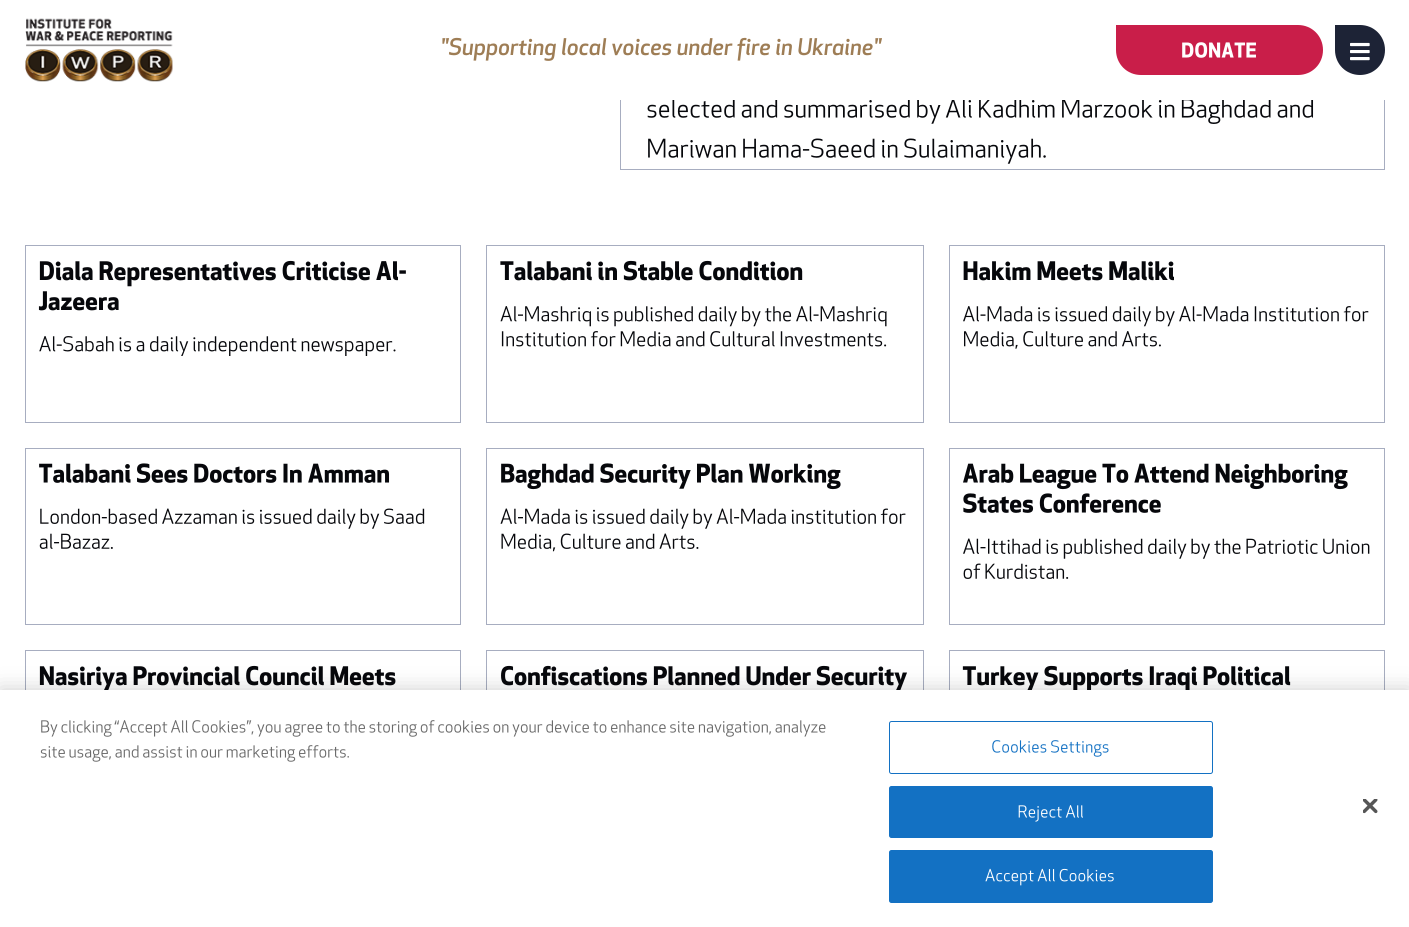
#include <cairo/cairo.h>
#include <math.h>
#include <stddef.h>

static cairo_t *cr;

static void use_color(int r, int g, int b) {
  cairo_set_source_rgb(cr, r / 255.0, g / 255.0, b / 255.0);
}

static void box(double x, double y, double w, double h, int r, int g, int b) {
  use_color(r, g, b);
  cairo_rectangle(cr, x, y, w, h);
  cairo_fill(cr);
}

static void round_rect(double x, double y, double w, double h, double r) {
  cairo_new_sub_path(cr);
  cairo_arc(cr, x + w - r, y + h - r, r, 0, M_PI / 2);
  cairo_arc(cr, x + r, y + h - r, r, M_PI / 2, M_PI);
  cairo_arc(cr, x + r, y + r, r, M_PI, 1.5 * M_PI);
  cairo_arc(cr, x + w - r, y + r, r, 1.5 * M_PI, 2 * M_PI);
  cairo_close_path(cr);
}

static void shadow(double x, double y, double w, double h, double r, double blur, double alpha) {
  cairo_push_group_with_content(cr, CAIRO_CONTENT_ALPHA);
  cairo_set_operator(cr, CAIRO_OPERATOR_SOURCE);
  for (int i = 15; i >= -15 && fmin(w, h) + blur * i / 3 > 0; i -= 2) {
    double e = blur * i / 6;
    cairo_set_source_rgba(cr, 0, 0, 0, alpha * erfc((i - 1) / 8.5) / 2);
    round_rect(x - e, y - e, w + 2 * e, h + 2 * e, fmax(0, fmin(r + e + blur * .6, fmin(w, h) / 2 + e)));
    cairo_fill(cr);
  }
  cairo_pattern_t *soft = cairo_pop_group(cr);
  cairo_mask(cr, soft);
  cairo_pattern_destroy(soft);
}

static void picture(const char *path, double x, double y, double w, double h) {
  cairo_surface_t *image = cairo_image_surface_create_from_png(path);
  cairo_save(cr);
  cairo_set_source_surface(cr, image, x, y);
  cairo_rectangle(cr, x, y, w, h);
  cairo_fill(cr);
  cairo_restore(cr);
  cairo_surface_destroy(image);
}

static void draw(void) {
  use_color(255, 255, 255);
  cairo_paint(cr);
  cairo_rectangle(cr, 620.5, -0.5, 764, 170);
  use_color(167, 173, 192);
  cairo_set_line_width(cr, 1);
  cairo_stroke(cr);
  picture("img_01.png", 647, 100, 667, 24);
  picture("img_02.png", 648, 138, 398, 26);
  cairo_rectangle(cr, 25.5, 245.5, 435, 177);
  cairo_stroke(cr);
  picture("img_03.png", 39, 260, 367, 27);
  picture("img_04.png", 38, 291, 81, 20);
  picture("img_05.png", 39, 336, 357, 20);
  cairo_rectangle(cr, 486.5, 245.5, 437, 177);
  cairo_stroke(cr);
  picture("img_06.png", 500, 260, 303, 21);
  picture("img_07.png", 500, 306, 387, 21);
  picture("img_08.png", 501, 331, 386, 16);
  cairo_rectangle(cr, 949.5, 245.5, 435, 177);
  cairo_stroke(cr);
  picture("img_09.png", 963, 261, 211, 20);
  picture("img_10.png", 963, 306, 406, 21);
  picture("img_11.png", 964, 331, 197, 18);
  cairo_rectangle(cr, 25.5, 448.5, 435, 176);
  cairo_stroke(cr);
  picture("img_12.png", 39, 463, 351, 20);
  picture("img_13.png", 40, 508, 385, 21);
  picture("img_14.png", 39, 533, 74, 16);
  cairo_rectangle(cr, 486.5, 448.5, 437, 176);
  cairo_stroke(cr);
  picture("img_15.png", 501, 463, 340, 27);
  picture("img_16.png", 500, 508, 406, 21);
  picture("img_17.png", 501, 533, 198, 19);
  cairo_rectangle(cr, 949.5, 448.5, 435, 176);
  cairo_stroke(cr);
  picture("img_18.png", 963, 463, 385, 27);
  picture("img_19.png", 963, 493, 198, 20);
  picture("img_20.png", 963, 538, 407, 21);
  picture("img_21.png", 963, 563, 106, 16);
  cairo_rectangle(cr, 25.5, 650.5, 435, 177);
  cairo_stroke(cr);
  picture("img_22.png", 39, 665, 357, 25);
  cairo_rectangle(cr, 486.5, 650.5, 437, 177);
  cairo_stroke(cr);
  picture("img_23.png", 501, 665, 406, 25);
  cairo_rectangle(cr, 949.5, 650.5, 435, 177);
  cairo_stroke(cr);
  picture("img_24.png", 962, 665, 329, 25);
  box(620, 0, 765, 100, 255, 255, 255);
  picture("img_25.png", 25, 18, 148, 64);
  picture("img_26.png", 442, 37, 440, 24);
  use_color(201, 30, 73);
  cairo_new_path(cr);
  cairo_move_to(cr, 1116, 25);
  cairo_line_to(cr, 1298, 25);
  cairo_curve_to(cr, 1312, 25, 1323, 36, 1323, 50);
  cairo_curve_to(cr, 1323, 64, 1312, 75, 1298, 75);
  cairo_line_to(cr, 1141, 75);
  cairo_curve_to(cr, 1127, 75, 1116, 64, 1116, 50);
  cairo_close_path(cr);
  cairo_fill(cr);
  picture("img_27.png", 1182, 42, 74, 16);
  use_color(29, 35, 54);
  cairo_new_path(cr);
  cairo_move_to(cr, 1335, 25);
  cairo_line_to(cr, 1360, 25);
  cairo_curve_to(cr, 1374, 25, 1385, 36, 1385, 50);
  cairo_curve_to(cr, 1385, 64, 1374, 75, 1360, 75);
  cairo_curve_to(cr, 1346, 75, 1335, 64, 1335, 50);
  cairo_close_path(cr);
  cairo_fill(cr);
  picture("img_28.png", 1350, 42, 20, 19);
  use_color(0, 0, 0);
  shadow(0, 690, 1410, 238, 0, 11, 0.2);
  box(0, 690, 1409, 237, 255, 255, 255);
  picture("img_29.png", 41, 720, 785, 17);
  picture("img_30.png", 40, 745, 309, 17);
  round_rect(889.5, 721.5, 323, 52, 2);
  use_color(19, 113, 195);
  cairo_stroke(cr);
  picture("img_31.png", 992, 740, 117, 17);
  round_rect(889.5, 786.5, 323, 51, 2);
  cairo_fill_preserve(cr);
  cairo_stroke(cr);
  picture("img_32.png", 1018, 805, 65, 17);
  round_rect(889.5, 850.5, 323, 52, 2);
  cairo_fill_preserve(cr);
  cairo_stroke(cr);
  picture("img_33.png", 985, 868, 129, 18);
  picture("img_34.png", 1363, 799, 15, 15);
}

int main(void) {
  cairo_surface_t *surface = cairo_image_surface_create(CAIRO_FORMAT_RGB24, 1409, 927);
  cr = cairo_create(surface);
  cairo_font_options_t *options = cairo_font_options_create();
  cairo_font_options_set_hint_metrics(options, CAIRO_HINT_METRICS_OFF);
  cairo_font_options_set_hint_style(options, CAIRO_HINT_STYLE_NONE);
  cairo_set_font_options(cr, options);
  cairo_set_miter_limit(cr, 4);
  draw();
  cairo_surface_write_to_png(surface, "out.png");
  cairo_font_options_destroy(options);
  cairo_destroy(cr);
  cairo_surface_destroy(surface);
  return 0;
}
